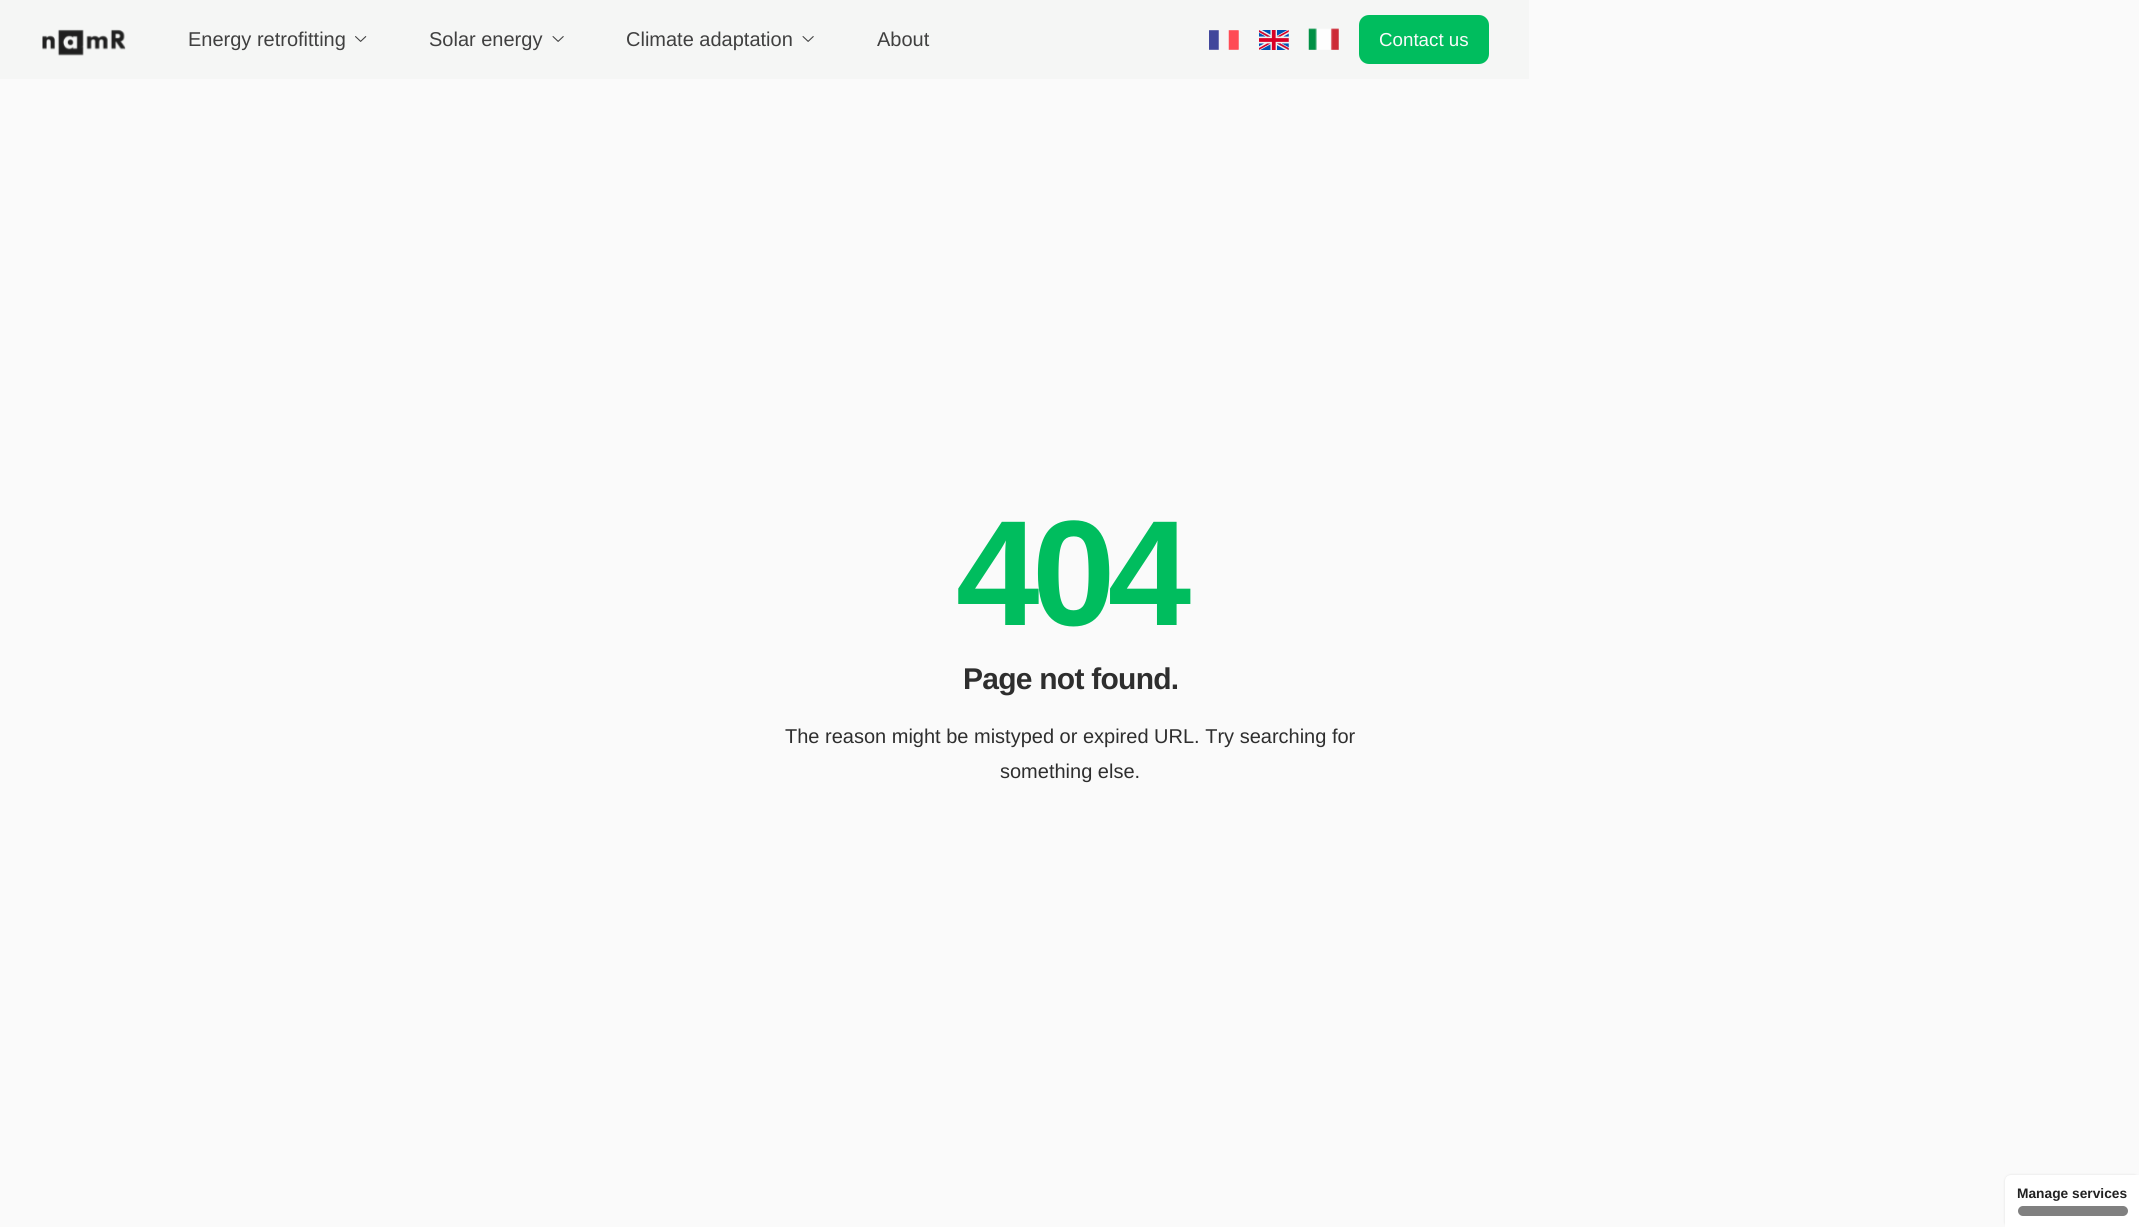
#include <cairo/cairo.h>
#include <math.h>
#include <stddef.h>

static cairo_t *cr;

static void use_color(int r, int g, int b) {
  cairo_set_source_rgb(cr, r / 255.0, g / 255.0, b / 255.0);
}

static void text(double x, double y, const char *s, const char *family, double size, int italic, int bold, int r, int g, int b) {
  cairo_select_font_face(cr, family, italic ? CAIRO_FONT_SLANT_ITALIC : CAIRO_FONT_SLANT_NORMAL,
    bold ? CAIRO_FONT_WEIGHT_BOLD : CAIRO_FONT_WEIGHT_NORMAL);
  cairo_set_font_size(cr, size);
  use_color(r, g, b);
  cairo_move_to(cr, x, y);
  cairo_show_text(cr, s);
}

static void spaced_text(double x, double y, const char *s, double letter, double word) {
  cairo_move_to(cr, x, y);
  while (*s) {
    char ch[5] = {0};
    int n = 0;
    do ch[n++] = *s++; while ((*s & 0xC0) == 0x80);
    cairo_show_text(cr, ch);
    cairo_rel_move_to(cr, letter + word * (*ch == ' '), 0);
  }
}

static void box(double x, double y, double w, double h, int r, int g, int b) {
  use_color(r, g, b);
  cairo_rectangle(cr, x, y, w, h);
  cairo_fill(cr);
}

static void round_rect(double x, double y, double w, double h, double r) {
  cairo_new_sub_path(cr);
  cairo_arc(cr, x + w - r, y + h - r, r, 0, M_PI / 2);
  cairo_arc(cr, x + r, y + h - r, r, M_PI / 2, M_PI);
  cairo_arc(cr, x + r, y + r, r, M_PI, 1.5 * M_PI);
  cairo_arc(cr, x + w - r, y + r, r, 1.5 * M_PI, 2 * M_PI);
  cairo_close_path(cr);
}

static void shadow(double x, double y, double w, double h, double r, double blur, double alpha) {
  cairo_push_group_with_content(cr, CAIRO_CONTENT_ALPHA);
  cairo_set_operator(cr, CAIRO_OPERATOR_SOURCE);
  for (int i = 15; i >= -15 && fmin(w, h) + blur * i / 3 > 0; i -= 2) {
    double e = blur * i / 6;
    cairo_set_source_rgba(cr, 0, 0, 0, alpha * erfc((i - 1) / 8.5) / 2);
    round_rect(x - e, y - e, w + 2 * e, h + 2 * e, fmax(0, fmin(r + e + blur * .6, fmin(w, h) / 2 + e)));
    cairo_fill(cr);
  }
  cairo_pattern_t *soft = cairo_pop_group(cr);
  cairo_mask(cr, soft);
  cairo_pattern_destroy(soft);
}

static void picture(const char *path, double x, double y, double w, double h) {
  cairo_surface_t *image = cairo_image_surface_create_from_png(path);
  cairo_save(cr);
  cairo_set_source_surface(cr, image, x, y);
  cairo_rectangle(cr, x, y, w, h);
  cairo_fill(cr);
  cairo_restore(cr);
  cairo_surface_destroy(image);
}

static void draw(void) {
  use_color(250, 250, 250);
  cairo_paint(cr);
  box(0, 0, 1529, 79, 245, 246, 245);
  picture("img_01.png", 42, 29, 84, 27);
  picture("img_02.png", 355, 36, 12, 6);
  picture("img_03.png", 552, 36, 12, 6);
  picture("img_03.png", 802, 36, 12, 6);
  picture("img_04.png", 1209, 30, 30, 20);
  picture("img_05.png", 1259, 30, 30, 20);
  picture("img_06.png", 1308, 28, 31, 22);
  use_color(0, 189, 94);
  round_rect(1359, 15, 130, 49, 10);
  cairo_fill(cr);
  use_color(221, 221, 221);
  shadow(2005, 1175, 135, 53, 6, 1, 1);
  use_color(255, 255, 255);
  cairo_new_path(cr);
  cairo_move_to(cr, 2011, 1175);
  cairo_line_to(cr, 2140, 1175);
  cairo_line_to(cr, 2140, 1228);
  cairo_line_to(cr, 2005, 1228);
  cairo_line_to(cr, 2005, 1181);
  cairo_curve_to(cr, 2005, 1177.5, 2007.5, 1175, 2011, 1175);
  cairo_close_path(cr);
  cairo_fill(cr);
  use_color(128, 128, 128);
  round_rect(2018, 1206, 110, 10, 5);
  cairo_fill(cr);
  text(188, 46, "Energy retrofitting", "Liberation Sans", 20, 0, 0, 64, 64, 64);
  text(429, 46, "Solar energy", "Liberation Sans", 20, 0, 0, 64, 64, 64);
  text(626, 46, "Climate adaptation", "Liberation Sans", 20, 0, 0, 64, 64, 64);
  text(877, 46, "About", "Liberation Sans", 20, 0, 0, 64, 64, 64);
  text(1379, 46, "Contact us", "Liberation Sans", 18.75, 0, 0, 250, 250, 250);
  cairo_select_font_face(cr, "Liberation Sans", CAIRO_FONT_SLANT_NORMAL, CAIRO_FONT_WEIGHT_BOLD);
  cairo_set_font_size(cr, 150);
  use_color(0, 189, 94);
  spaced_text(956, 625, "404", -7.5, 0);
  cairo_set_font_size(cr, 30);
  use_color(46, 46, 46);
  spaced_text(963, 689, "Page not found.", -0.75, 0);
  text(785, 743, "The reason might be mistyped or expired URL. Try searching for", "Liberation Sans", 20, 0, 0, 46, 46, 46);
  text(1000, 778, "something else.", "Liberation Sans", 20, 0, 0, 46, 46, 46);
  text(2017, 1198, "Manage services", "Liberation Sans", 13.75, 0, 1, 34, 34, 34);
}

int main(void) {
  cairo_surface_t *surface = cairo_image_surface_create(CAIRO_FORMAT_RGB24, 2139, 1227);
  cr = cairo_create(surface);
  cairo_font_options_t *options = cairo_font_options_create();
  cairo_font_options_set_hint_metrics(options, CAIRO_HINT_METRICS_OFF);
  cairo_font_options_set_hint_style(options, CAIRO_HINT_STYLE_NONE);
  cairo_set_font_options(cr, options);
  cairo_set_miter_limit(cr, 4);
  draw();
  cairo_surface_write_to_png(surface, "out.png");
  cairo_font_options_destroy(options);
  cairo_destroy(cr);
  cairo_surface_destroy(surface);
  return 0;
}
